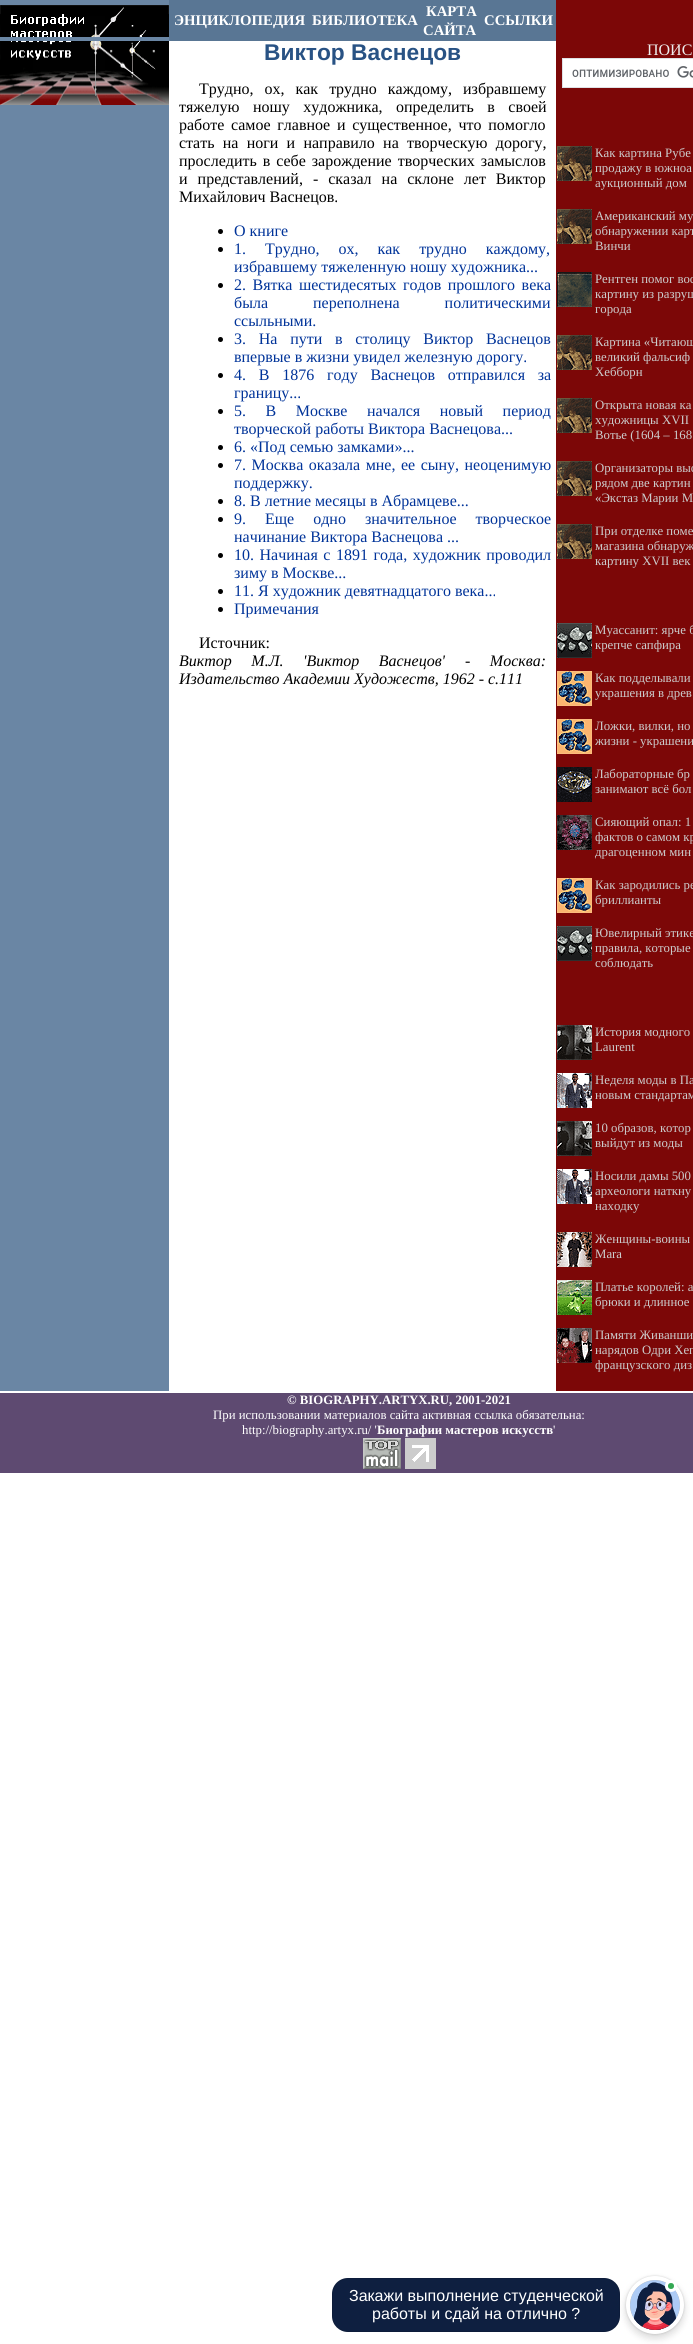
#include <cairo/cairo.h>
#include <math.h>
#include <stddef.h>

static cairo_t *cr;

static void use_color(int r, int g, int b) {
  cairo_set_source_rgb(cr, r / 255.0, g / 255.0, b / 255.0);
}

static void text(double x, double y, const char *s, const char *family, double size, int italic, int bold, int r, int g, int b) {
  cairo_select_font_face(cr, family, italic ? CAIRO_FONT_SLANT_ITALIC : CAIRO_FONT_SLANT_NORMAL,
    bold ? CAIRO_FONT_WEIGHT_BOLD : CAIRO_FONT_WEIGHT_NORMAL);
  cairo_set_font_size(cr, size);
  use_color(r, g, b);
  cairo_move_to(cr, x, y);
  cairo_show_text(cr, s);
}

static void spaced_text(double x, double y, const char *s, double letter, double word) {
  cairo_move_to(cr, x, y);
  while (*s) {
    char ch[5] = {0};
    int n = 0;
    do ch[n++] = *s++; while ((*s & 0xC0) == 0x80);
    cairo_show_text(cr, ch);
    cairo_rel_move_to(cr, letter + word * (*ch == ' '), 0);
  }
}

static void box(double x, double y, double w, double h, int r, int g, int b) {
  use_color(r, g, b);
  cairo_rectangle(cr, x, y, w, h);
  cairo_fill(cr);
}

static void round_rect(double x, double y, double w, double h, double r) {
  cairo_new_sub_path(cr);
  cairo_arc(cr, x + w - r, y + h - r, r, 0, M_PI / 2);
  cairo_arc(cr, x + r, y + h - r, r, M_PI / 2, M_PI);
  cairo_arc(cr, x + r, y + r, r, M_PI, 1.5 * M_PI);
  cairo_arc(cr, x + w - r, y + r, r, 1.5 * M_PI, 2 * M_PI);
  cairo_close_path(cr);
}

static void shadow(double x, double y, double w, double h, double r, double blur, double alpha) {
  cairo_push_group_with_content(cr, CAIRO_CONTENT_ALPHA);
  cairo_set_operator(cr, CAIRO_OPERATOR_SOURCE);
  for (int i = 15; i >= -15 && fmin(w, h) + blur * i / 3 > 0; i -= 2) {
    double e = blur * i / 6;
    cairo_set_source_rgba(cr, 0, 0, 0, alpha * erfc((i - 1) / 8.5) / 2);
    round_rect(x - e, y - e, w + 2 * e, h + 2 * e, fmax(0, fmin(r + e + blur * .6, fmin(w, h) / 2 + e)));
    cairo_fill(cr);
  }
  cairo_pattern_t *soft = cairo_pop_group(cr);
  cairo_mask(cr, soft);
  cairo_pattern_destroy(soft);
}

static void picture(const char *path, double x, double y, double w, double h) {
  cairo_surface_t *image = cairo_image_surface_create_from_png(path);
  cairo_save(cr);
  cairo_set_source_surface(cr, image, x, y);
  cairo_rectangle(cr, x, y, w, h);
  cairo_fill(cr);
  cairo_restore(cr);
  cairo_surface_destroy(image);
}

static void draw(void) {
  use_color(255, 255, 255);
  cairo_paint(cr);
  box(0, 0, 169, 41, 106, 134, 164);
  picture("img_01.png", 0, 5, 169, 32);
  box(169, 0, 387, 41, 89, 118, 148);
  box(556, 0, 137, 1391, 124, 7, 7);
  box(0, 105, 169, 1286, 106, 134, 164);
  picture("img_02.png", 0, 41, 169, 64);
  use_color(0, 0, 0);
  cairo_arc(cr, 220.5, 231.5, 2.5, 0, 2 * M_PI);
  cairo_fill(cr);
  cairo_arc(cr, 220.5, 249.5, 2.5, 0, 2 * M_PI);
  cairo_fill(cr);
  cairo_arc(cr, 220.5, 285.5, 2.5, 0, 2 * M_PI);
  cairo_fill(cr);
  cairo_arc(cr, 220.5, 339.5, 2.5, 0, 2 * M_PI);
  cairo_fill(cr);
  cairo_arc(cr, 220.5, 375.5, 2.5, 0, 2 * M_PI);
  cairo_fill(cr);
  cairo_arc(cr, 220.5, 411.5, 2.5, 0, 2 * M_PI);
  cairo_fill(cr);
  cairo_arc(cr, 220.5, 447.5, 2.5, 0, 2 * M_PI);
  cairo_fill(cr);
  cairo_arc(cr, 220.5, 465.5, 2.5, 0, 2 * M_PI);
  cairo_fill(cr);
  cairo_arc(cr, 220.5, 501.5, 2.5, 0, 2 * M_PI);
  cairo_fill(cr);
  cairo_arc(cr, 220.5, 519.5, 2.5, 0, 2 * M_PI);
  cairo_fill(cr);
  cairo_arc(cr, 220.5, 555.5, 2.5, 0, 2 * M_PI);
  cairo_fill(cr);
  cairo_arc(cr, 220.5, 591.5, 2.5, 0, 2 * M_PI);
  cairo_fill(cr);
  cairo_arc(cr, 220.5, 609.5, 2.5, 0, 2 * M_PI);
  cairo_fill(cr);
  use_color(255, 255, 255);
  cairo_rectangle(cr, 562.5, 58.5, 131, 29);
  cairo_fill_preserve(cr);
  use_color(223, 225, 229);
  cairo_set_line_width(cr, 1);
  cairo_stroke(cr);
  picture("img_03.png", 572, 66, 121, 12);
  picture("img_04.png", 557, 146, 35, 35);
  picture("img_04.png", 557, 209, 35, 35);
  picture("img_05.png", 557, 272, 35, 35);
  picture("img_04.png", 557, 335, 35, 35);
  picture("img_04.png", 557, 398, 35, 35);
  picture("img_04.png", 557, 461, 35, 35);
  picture("img_04.png", 557, 524, 35, 35);
  picture("img_06.png", 557, 623, 35, 35);
  picture("img_07.png", 557, 671, 35, 35);
  picture("img_07.png", 557, 719, 35, 35);
  picture("img_08.png", 557, 767, 35, 35);
  picture("img_09.png", 557, 815, 35, 35);
  picture("img_07.png", 557, 878, 35, 35);
  picture("img_06.png", 557, 926, 35, 35);
  picture("img_10.png", 557, 1025, 35, 35);
  picture("img_11.png", 557, 1073, 35, 35);
  picture("img_10.png", 557, 1121, 35, 35);
  picture("img_11.png", 557, 1169, 35, 35);
  picture("img_12.png", 557, 1232, 35, 35);
  picture("img_13.png", 557, 1280, 35, 35);
  picture("img_14.png", 557, 1328, 35, 35);
  box(0, 1393, 693, 80, 94, 74, 113);
  picture("img_15.png", 363, 1438, 38, 31);
  picture("img_16.png", 405, 1438, 31, 31);
  use_color(0, 0, 0);
  shadow(626, 2280, 58, 58, 29, 4, 0.16);
  use_color(14, 31, 64);
  round_rect(332, 2278, 288, 54, 16);
  cairo_fill(cr);
  round_rect(332.5, 2278.5, 287, 53, 15.5);
  cairo_set_source_rgba(cr, 0, 0, 0, 0.1);
  cairo_stroke(cr);
  use_color(0, 0, 0);
  shadow(626, 2276, 58, 58, 29, 1, 0.16);
  cairo_arc(cr, 655, 2305, 27, 0, 2 * M_PI);
  use_color(255, 255, 255);
  cairo_set_line_width(cr, 4);
  cairo_stroke(cr);
  picture("img_17.png", 630, 2280, 50, 50);
  use_color(52, 168, 83);
  cairo_arc(cr, 671, 2286, 4.5, 0, 2 * M_PI);
  cairo_fill_preserve(cr);
  use_color(255, 255, 255);
  cairo_set_line_width(cr, 3);
  cairo_stroke(cr);
  text(174, 25, "ЭНЦИКЛОПЕДИЯ", "Liberation Serif", 14.75, 0, 1, 255, 255, 255);
  text(312, 25, "БИБЛИОТЕКА", "Liberation Serif", 14.75, 0, 1, 255, 255, 255);
  text(426, 16, "КАРТА", "Liberation Serif", 14.75, 0, 1, 255, 255, 255);
  text(423, 35, "САЙТА", "Liberation Serif", 14.75, 0, 1, 255, 255, 255);
  text(484, 25, "ССЫЛКИ", "Liberation Serif", 14.75, 0, 1, 255, 255, 255);
  text(264, 60, "Виктор Васнецов", "Liberation Sans", 22.75, 0, 1, 40, 82, 132);
  cairo_select_font_face(cr, "Liberation Serif", CAIRO_FONT_SLANT_NORMAL, CAIRO_FONT_WEIGHT_NORMAL);
  cairo_set_font_size(cr, 16);
  use_color(0, 0, 0);
  spaced_text(199, 94, "Трудно, ох, как трудно каждому, избравшему", 0, 7);
  spaced_text(179, 112, "тяжелую ношу художника, определить в своей", 0, 9.5);
  spaced_text(179, 130, "работе самое главное и существенное, что помогло", 0, 2.75);
  spaced_text(179, 148, "стать на ноги и направило на творческую дорогу,", 0, 4.25);
  spaced_text(179, 166, "проследить в себе зарождение творческих замыслов", 0, 2);
  spaced_text(179, 184, "и представлений, - сказал на склоне лет Виктор", 0, 6);
  text(179, 202, "Михайлович Васнецов.", "Liberation Serif", 16, 0, 0, 0, 0, 0);
  text(234, 236, "О книге", "Liberation Serif", 16, 0, 0, 0, 51, 153);
  spaced_text(234, 254, "1. Трудно, ох, как трудно каждому,", 0, 15);
  text(234, 272, "избравшему тяжеленную ношу художника...", "Liberation Serif", 16, 0, 0, 0, 51, 153);
  spaced_text(234, 290, "2. Вятка шестидесятых годов прошлого века", 0, 2.5);
  spaced_text(234, 308, "была переполнена политическими", 0, 41);
  text(234, 326, "ссыльными.", "Liberation Serif", 16, 0, 0, 0, 51, 153);
  spaced_text(234, 344, "3. На пути в столицу Виктор Васнецов", 0, 8.75);
  text(234, 362, "впервые в жизни увидел железную дорогу.", "Liberation Serif", 16, 0, 0, 0, 51, 153);
  spaced_text(234, 380, "4. В 1876 году Васнецов отправился за", 0, 8.75);
  text(234, 398, "границу...", "Liberation Serif", 16, 0, 0, 0, 51, 153);
  spaced_text(234, 416, "5. В Москве начался новый период", 0, 15.5);
  text(234, 434, "творческой работы Виктора Васнецова...", "Liberation Serif", 16, 0, 0, 0, 51, 153);
  text(234, 452, "6. «Под семью замками»...", "Liberation Serif", 16, 0, 0, 0, 51, 153);
  spaced_text(234, 470, "7. Москва оказала мне, ее сыну, неоценимую", 0, 1.5);
  text(234, 488, "поддержку.", "Liberation Serif", 16, 0, 0, 0, 51, 153);
  text(234, 506, "8. В летние месяцы в Абрамцеве...", "Liberation Serif", 16, 0, 0, 0, 51, 153);
  spaced_text(234, 524, "9. Еще одно значительное творческое", 0, 15);
  text(234, 542, "начинание Виктора Васнецова ...", "Liberation Serif", 16, 0, 0, 0, 51, 153);
  spaced_text(234, 560, "10. Начиная с 1891 года, художник проводил", 0, 1.5);
  text(234, 578, "зиму в Москве...", "Liberation Serif", 16, 0, 0, 0, 51, 153);
  text(234, 596, "11. Я художник девятнадцатого века...", "Liberation Serif", 16, 0, 0, 0, 51, 153);
  text(234, 614, "Примечания", "Liberation Serif", 16, 0, 0, 0, 51, 153);
  text(199, 648, "Источник:", "Liberation Serif", 16, 0, 0, 0, 0, 0);
  cairo_select_font_face(cr, "Liberation Serif", CAIRO_FONT_SLANT_ITALIC, CAIRO_FONT_WEIGHT_NORMAL);
  spaced_text(179, 666, "Виктор М.Л. 'Виктор Васнецов'", 0, 15.5);
  spaced_text(465, 666, "- Москва:", 0, 15.5);
  text(179, 684, "Издательство Академии Художеств, 1962 - с.111", "Liberation Serif", 16, 1, 0, 0, 0, 0);
  text(647, 55, "ПОИС", "Liberation Serif", 16, 0, 0, 238, 238, 238);
  text(595, 157, "Как картина Рубе", "Liberation Serif", 12.8, 0, 0, 204, 204, 204);
  text(595, 172, "продажу в южноа", "Liberation Serif", 12.8, 0, 0, 204, 204, 204);
  text(595, 187, "аукционный дом", "Liberation Serif", 12.8, 0, 0, 204, 204, 204);
  text(595, 220, "Американский му", "Liberation Serif", 12.8, 0, 0, 204, 204, 204);
  text(595, 235, "обнаружении карт", "Liberation Serif", 12.8, 0, 0, 204, 204, 204);
  text(595, 250, "Винчи", "Liberation Serif", 12.8, 0, 0, 204, 204, 204);
  text(595, 283, "Рентген помог вос", "Liberation Serif", 12.8, 0, 0, 204, 204, 204);
  text(595, 298, "картину из разруш", "Liberation Serif", 12.8, 0, 0, 204, 204, 204);
  text(595, 313, "города", "Liberation Serif", 12.8, 0, 0, 204, 204, 204);
  text(595, 346, "Картина «Читающ", "Liberation Serif", 12.8, 0, 0, 204, 204, 204);
  text(595, 361, "великий фальсиф", "Liberation Serif", 12.8, 0, 0, 204, 204, 204);
  text(595, 376, "Хебборн", "Liberation Serif", 12.8, 0, 0, 204, 204, 204);
  text(595, 409, "Открыта новая ка", "Liberation Serif", 12.8, 0, 0, 204, 204, 204);
  text(595, 424, "художницы XVII", "Liberation Serif", 12.8, 0, 0, 204, 204, 204);
  text(595, 439, "Вотье (1604 – 168", "Liberation Serif", 12.8, 0, 0, 204, 204, 204);
  text(595, 472, "Организаторы выс", "Liberation Serif", 12.8, 0, 0, 204, 204, 204);
  text(595, 487, "рядом две картин", "Liberation Serif", 12.8, 0, 0, 204, 204, 204);
  text(595, 502, "«Экстаз Марии М", "Liberation Serif", 12.8, 0, 0, 204, 204, 204);
  text(595, 535, "При отделке поме", "Liberation Serif", 12.8, 0, 0, 204, 204, 204);
  text(595, 550, "магазина обнаруж", "Liberation Serif", 12.8, 0, 0, 204, 204, 204);
  text(595, 565, "картину XVII век", "Liberation Serif", 12.8, 0, 0, 204, 204, 204);
  text(595, 634, "Муассанит: ярче б", "Liberation Serif", 12.8, 0, 0, 204, 204, 204);
  text(595, 649, "крепче сапфира", "Liberation Serif", 12.8, 0, 0, 204, 204, 204);
  text(595, 682, "Как подделывали", "Liberation Serif", 12.8, 0, 0, 204, 204, 204);
  text(595, 697, "украшения в древ", "Liberation Serif", 12.8, 0, 0, 204, 204, 204);
  text(595, 730, "Ложки, вилки, но", "Liberation Serif", 12.8, 0, 0, 204, 204, 204);
  text(595, 745, "жизни - украшени", "Liberation Serif", 12.8, 0, 0, 204, 204, 204);
  text(595, 778, "Лабораторные бр", "Liberation Serif", 12.8, 0, 0, 204, 204, 204);
  text(595, 793, "занимают всё бол", "Liberation Serif", 12.8, 0, 0, 204, 204, 204);
  text(595, 826, "Сияющий опал: 1", "Liberation Serif", 12.8, 0, 0, 204, 204, 204);
  text(595, 841, "фактов о самом кр", "Liberation Serif", 12.8, 0, 0, 204, 204, 204);
  text(595, 856, "драгоценном мин", "Liberation Serif", 12.8, 0, 0, 204, 204, 204);
  text(595, 889, "Как зародились ре", "Liberation Serif", 12.8, 0, 0, 204, 204, 204);
  text(595, 904, "бриллианты", "Liberation Serif", 12.8, 0, 0, 204, 204, 204);
  text(595, 937, "Ювелирный этике", "Liberation Serif", 12.8, 0, 0, 204, 204, 204);
  text(595, 952, "правила, которые", "Liberation Serif", 12.8, 0, 0, 204, 204, 204);
  text(595, 967, "соблюдать", "Liberation Serif", 12.8, 0, 0, 204, 204, 204);
  text(595, 1036, "История модного", "Liberation Serif", 12.8, 0, 0, 204, 204, 204);
  text(595, 1051, "Laurent", "Liberation Serif", 12.8, 0, 0, 204, 204, 204);
  text(595, 1084, "Неделя моды в Па", "Liberation Serif", 12.8, 0, 0, 204, 204, 204);
  text(595, 1099, "новым стандартам", "Liberation Serif", 12.8, 0, 0, 204, 204, 204);
  text(595, 1132, "10 образов, котор", "Liberation Serif", 12.8, 0, 0, 204, 204, 204);
  text(595, 1147, "выйдут из моды", "Liberation Serif", 12.8, 0, 0, 204, 204, 204);
  text(595, 1180, "Носили дамы 500", "Liberation Serif", 12.8, 0, 0, 204, 204, 204);
  text(595, 1195, "археологи наткну", "Liberation Serif", 12.8, 0, 0, 204, 204, 204);
  text(595, 1210, "находку", "Liberation Serif", 12.8, 0, 0, 204, 204, 204);
  text(595, 1243, "Женщины-воины", "Liberation Serif", 12.8, 0, 0, 204, 204, 204);
  text(595, 1258, "Mara", "Liberation Serif", 12.8, 0, 0, 204, 204, 204);
  text(595, 1291, "Платье королей: а", "Liberation Serif", 12.8, 0, 0, 204, 204, 204);
  text(595, 1306, "брюки и длинное", "Liberation Serif", 12.8, 0, 0, 204, 204, 204);
  text(595, 1339, "Памяти Живанши", "Liberation Serif", 12.8, 0, 0, 204, 204, 204);
  text(595, 1354, "нарядов Одри Хеп", "Liberation Serif", 12.8, 0, 0, 204, 204, 204);
  text(595, 1369, "французского диз", "Liberation Serif", 12.8, 0, 0, 204, 204, 204);
  text(287, 1404, "© BIOGRAPHY.ARTYX.RU, 2001-2021", "Liberation Serif", 12.8, 0, 1, 255, 255, 255);
  text(213, 1419, "При использовании материалов сайта активная ссылка обязательна:", "Liberation Serif", 12.8, 0, 0, 255, 255, 255);
  text(242, 1434, "http://biography.artyx.ru/ '", "Liberation Serif", 12.8, 0, 0, 255, 255, 255);
  text(377, 1434, "Биографии мастеров искусств", "Liberation Serif", 12.8, 0, 1, 255, 255, 255);
  text(553, 1434, "'", "Liberation Serif", 12.8, 0, 0, 255, 255, 255);
  text(349, 2301, "Закажи выполнение студенческой", "Liberation Sans", 16, 0, 0, 255, 255, 255);
  text(372, 2319, "работы и сдай на отлично ?", "Liberation Sans", 16, 0, 0, 255, 255, 255);
}

int main(void) {
  cairo_surface_t *surface = cairo_image_surface_create(CAIRO_FORMAT_RGB24, 693, 2344);
  cr = cairo_create(surface);
  cairo_font_options_t *options = cairo_font_options_create();
  cairo_font_options_set_hint_metrics(options, CAIRO_HINT_METRICS_OFF);
  cairo_font_options_set_hint_style(options, CAIRO_HINT_STYLE_NONE);
  cairo_set_font_options(cr, options);
  cairo_set_miter_limit(cr, 4);
  draw();
  cairo_surface_write_to_png(surface, "out.png");
  cairo_font_options_destroy(options);
  cairo_destroy(cr);
  cairo_surface_destroy(surface);
  return 0;
}
